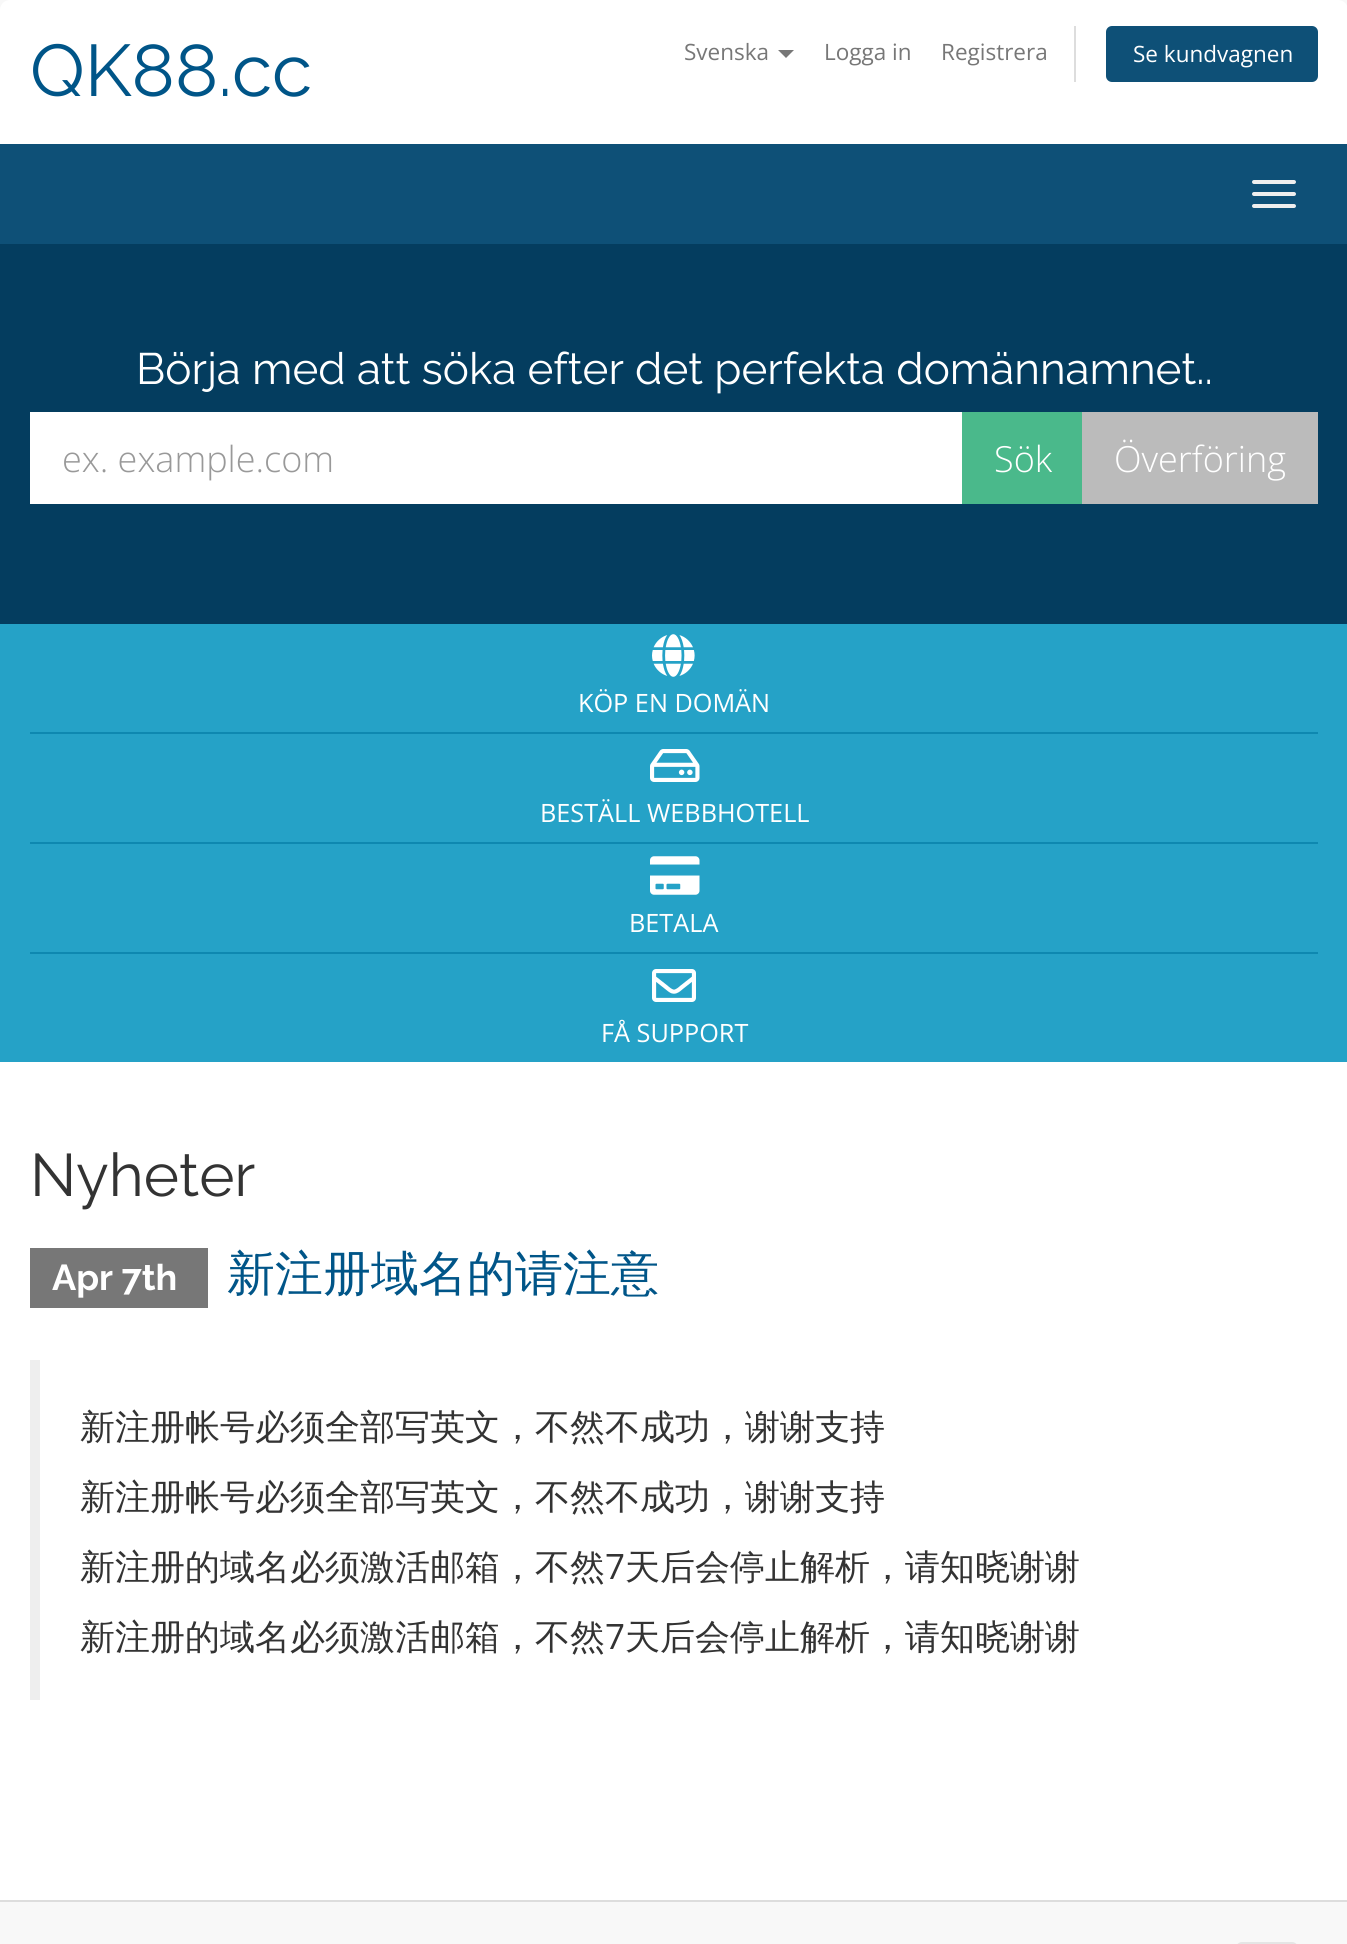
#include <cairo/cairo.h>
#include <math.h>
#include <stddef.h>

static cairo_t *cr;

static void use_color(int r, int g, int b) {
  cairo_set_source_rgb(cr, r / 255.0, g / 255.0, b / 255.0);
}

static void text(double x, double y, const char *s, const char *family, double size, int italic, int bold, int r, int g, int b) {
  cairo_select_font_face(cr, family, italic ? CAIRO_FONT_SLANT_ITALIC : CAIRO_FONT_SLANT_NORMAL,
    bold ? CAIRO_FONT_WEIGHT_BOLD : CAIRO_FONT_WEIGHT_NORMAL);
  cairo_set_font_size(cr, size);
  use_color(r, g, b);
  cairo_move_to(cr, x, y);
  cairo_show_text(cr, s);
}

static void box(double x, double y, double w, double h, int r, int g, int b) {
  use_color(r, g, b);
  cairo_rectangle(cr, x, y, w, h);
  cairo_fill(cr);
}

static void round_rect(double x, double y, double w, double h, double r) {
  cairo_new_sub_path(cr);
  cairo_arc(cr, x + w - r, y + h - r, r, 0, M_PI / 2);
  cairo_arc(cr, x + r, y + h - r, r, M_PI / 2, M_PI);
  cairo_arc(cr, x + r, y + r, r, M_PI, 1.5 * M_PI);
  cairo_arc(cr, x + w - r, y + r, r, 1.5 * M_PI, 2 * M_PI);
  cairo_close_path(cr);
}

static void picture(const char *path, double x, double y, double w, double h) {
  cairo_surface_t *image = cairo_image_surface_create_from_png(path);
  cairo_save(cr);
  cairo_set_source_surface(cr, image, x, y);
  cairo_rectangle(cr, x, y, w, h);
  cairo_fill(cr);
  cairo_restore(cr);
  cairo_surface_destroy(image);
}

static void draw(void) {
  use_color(248, 248, 248);
  cairo_paint(cr);
  use_color(255, 255, 255);
  cairo_new_path(cr);
  cairo_move_to(cr, 10, 0);
  cairo_line_to(cr, 1338, 0);
  cairo_curve_to(cr, 1343.5, 0, 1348, 4.5, 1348, 10);
  cairo_line_to(cr, 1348, 144);
  cairo_line_to(cr, 0, 144);
  cairo_line_to(cr, 0, 10);
  cairo_curve_to(cr, 0, 4.5, 4.5, 0, 10, 0);
  cairo_close_path(cr);
  cairo_fill(cr);
  use_color(119, 119, 119);
  cairo_new_path(cr);
  cairo_move_to(cr, 778, 50);
  cairo_line_to(cr, 794, 50);
  cairo_line_to(cr, 786, 58);
  cairo_close_path(cr);
  cairo_fill(cr);
  box(1074, 26, 2, 56, 221, 221, 221);
  use_color(14, 80, 119);
  round_rect(1106, 26, 212, 56, 6);
  cairo_fill(cr);
  box(0, 144, 1347, 100, 14, 80, 119);
  use_color(238, 238, 238);
  round_rect(1252, 180, 44, 4, 2);
  cairo_fill(cr);
  round_rect(1252, 192, 44, 4, 2);
  cairo_fill(cr);
  round_rect(1252, 204, 44, 4, 2);
  cairo_fill(cr);
  box(0, 244, 1347, 380, 4, 61, 95);
  box(30, 412, 932, 92, 255, 255, 255);
  box(962, 412, 120, 92, 74, 185, 139);
  box(1082, 412, 236, 92, 187, 187, 187);
  box(0, 624, 1347, 438, 37, 162, 199);
  box(30, 732, 1288, 2, 14, 136, 176);
  picture("img_01.png", 652, 634, 43, 43);
  box(30, 842, 1288, 2, 14, 136, 176);
  picture("img_02.png", 650, 749, 50, 33);
  box(30, 952, 1288, 2, 14, 136, 176);
  picture("img_03.png", 650, 856, 50, 39);
  picture("img_04.png", 652, 969, 44, 33);
  box(0, 1062, 1347, 838, 255, 255, 255);
  box(30, 1248, 178, 60, 119, 119, 119);
  box(30, 1360, 10, 340, 238, 238, 238);
  box(0, 1900, 1347, 2, 221, 221, 221);
  use_color(229, 229, 229);
  round_rect(1236, 1942, 62, 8, 6);
  cairo_fill(cr);
  text(30, 96, "QK88.cc", "Raleway", 73, 0, 0, 0, 85, 136);
  text(684, 60, "Svenska", "Open Sans", 22.5, 0, 0, 119, 119, 119);
  text(824, 60, "Logga in", "Open Sans", 22.5, 0, 0, 119, 119, 119);
  text(941, 60, "Registrera", "Open Sans", 22.5, 0, 0, 119, 119, 119);
  text(1133, 62, "Se kundvagnen", "Open Sans", 22.5, 0, 0, 255, 255, 255);
  text(136, 384, "Börja med att söka efter det perfekta domännamnet..", "Raleway", 44, 0, 0, 255, 255, 255);
  text(62, 472, "ex. example.com", "Open Sans Light", 36, 0, 0, 153, 153, 153);
  text(994, 472, "Sök", "Open Sans Light", 36, 0, 0, 255, 255, 255);
  text(1114, 472, "Överföring", "Open Sans Light", 36, 0, 0, 255, 255, 255);
  text(578, 712, "KÖP EN DOMÄN", "Open Sans", 25.25, 0, 0, 255, 255, 255);
  text(540, 822, "BESTÄLL WEBBHOTELL", "Open Sans", 25.25, 0, 0, 255, 255, 255);
  text(629, 932, "BETALA", "Open Sans", 25.25, 0, 0, 255, 255, 255);
  text(601, 1042, "FÅ SUPPORT", "Open Sans", 25.25, 0, 0, 255, 255, 255);
  text(30, 1196, "Nyheter", "Raleway", 60, 0, 0, 51, 51, 51);
  text(52, 1290, "Apr 7th", "Raleway", 36, 0, 1, 255, 255, 255);
  text(227, 1290, "新注册域名的请注意", "WenQuanYi Zen Hei Medium", 48, 0, 0, 0, 85, 136);
  text(80, 1439, "新注册帐号必须全部写英文，不然不成功，谢谢支持", "WenQuanYi Zen Hei Medium", 35, 0, 0, 51, 51, 51);
  text(80, 1509, "新注册帐号必须全部写英文，不然不成功，谢谢支持", "WenQuanYi Zen Hei Medium", 35, 0, 0, 51, 51, 51);
  text(80, 1579, "新注册的域名必须激活邮箱，不然", "WenQuanYi Zen Hei Medium", 35, 0, 0, 51, 51, 51);
  text(605, 1579, "7", "Open Sans", 35, 0, 0, 51, 51, 51);
  text(625, 1579, "天后会停止解析，请知晓谢谢", "WenQuanYi Zen Hei Medium", 35, 0, 0, 51, 51, 51);
  text(80, 1649, "新注册的域名必须激活邮箱，不然", "WenQuanYi Zen Hei Medium", 35, 0, 0, 51, 51, 51);
  text(605, 1649, "7", "Open Sans", 35, 0, 0, 51, 51, 51);
  text(625, 1649, "天后会停止解析，请知晓谢谢", "WenQuanYi Zen Hei Medium", 35, 0, 0, 51, 51, 51);
}

int main(void) {
  cairo_surface_t *surface = cairo_image_surface_create(CAIRO_FORMAT_RGB24, 1347, 1944);
  cr = cairo_create(surface);
  cairo_font_options_t *options = cairo_font_options_create();
  cairo_font_options_set_hint_metrics(options, CAIRO_HINT_METRICS_OFF);
  cairo_font_options_set_hint_style(options, CAIRO_HINT_STYLE_NONE);
  cairo_set_font_options(cr, options);
  cairo_set_miter_limit(cr, 4);
  draw();
  cairo_surface_write_to_png(surface, "out.png");
  cairo_font_options_destroy(options);
  cairo_destroy(cr);
  cairo_surface_destroy(surface);
  return 0;
}
